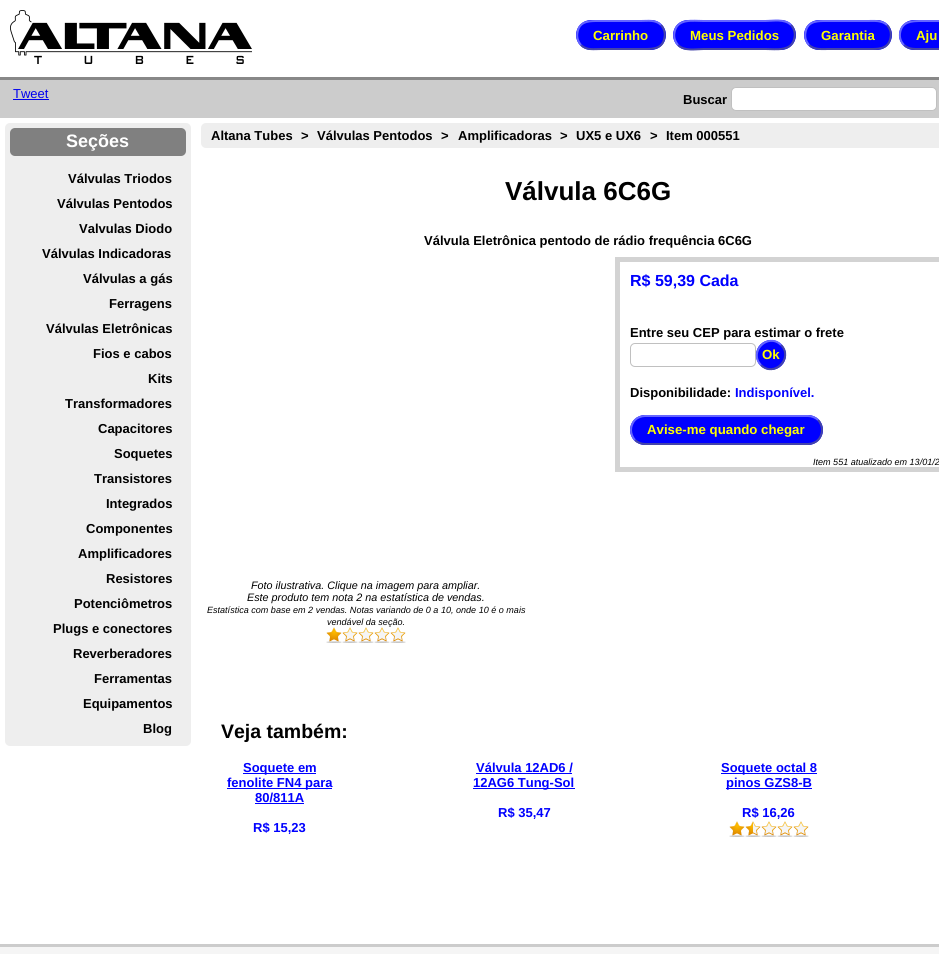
#include <cairo/cairo.h>
#include <math.h>
#include <stddef.h>

static cairo_t *cr;

static void use_color(int r, int g, int b) {
  cairo_set_source_rgb(cr, r / 255.0, g / 255.0, b / 255.0);
}

static void text(double x, double y, const char *s, const char *family, double size, int italic, int bold, int r, int g, int b) {
  cairo_select_font_face(cr, family, italic ? CAIRO_FONT_SLANT_ITALIC : CAIRO_FONT_SLANT_NORMAL,
    bold ? CAIRO_FONT_WEIGHT_BOLD : CAIRO_FONT_WEIGHT_NORMAL);
  cairo_set_font_size(cr, size);
  use_color(r, g, b);
  cairo_move_to(cr, x, y);
  cairo_show_text(cr, s);
}

static void box(double x, double y, double w, double h, int r, int g, int b) {
  use_color(r, g, b);
  cairo_rectangle(cr, x, y, w, h);
  cairo_fill(cr);
}

static void round_rect(double x, double y, double w, double h, double r) {
  cairo_new_sub_path(cr);
  cairo_arc(cr, x + w - r, y + h - r, r, 0, M_PI / 2);
  cairo_arc(cr, x + r, y + h - r, r, M_PI / 2, M_PI);
  cairo_arc(cr, x + r, y + r, r, M_PI, 1.5 * M_PI);
  cairo_arc(cr, x + w - r, y + r, r, 1.5 * M_PI, 2 * M_PI);
  cairo_close_path(cr);
}

static void picture(const char *path, double x, double y, double w, double h) {
  cairo_surface_t *image = cairo_image_surface_create_from_png(path);
  cairo_save(cr);
  cairo_set_source_surface(cr, image, x, y);
  cairo_rectangle(cr, x, y, w, h);
  cairo_fill(cr);
  cairo_restore(cr);
  cairo_surface_destroy(image);
}

static void draw(void) {
  use_color(255, 255, 255);
  cairo_paint(cr);
  box(0, 77, 939, 3, 136, 136, 136);
  picture("img_01.png", 10, 10, 242, 54);
  use_color(0, 0, 255);
  round_rect(576, 20, 90, 30, 15);
  cairo_fill(cr);
  cairo_new_path(cr);
  cairo_move_to(cr, 661, 25);
  cairo_curve_to(cr, 664, 28.5, 665.5, 33, 664.5, 37.5);
  cairo_curve_to(cr, 662.5, 50, 651, 49, 641, 49);
  cairo_line_to(cr, 601, 49);
  cairo_curve_to(cr, 594, 49, 586.5, 50.5, 581, 45);
  use_color(68, 68, 170);
  cairo_stroke(cr);
  cairo_new_path(cr);
  cairo_move_to(cr, 581, 45);
  cairo_curve_to(cr, 578, 41.5, 576.5, 37, 577.5, 32.5);
  cairo_curve_to(cr, 579.5, 20, 591, 21, 601, 21);
  cairo_line_to(cr, 641, 21);
  cairo_curve_to(cr, 648, 21, 655.5, 19.5, 661, 25);
  use_color(102, 102, 255);
  cairo_stroke(cr);
  use_color(0, 0, 255);
  round_rect(673, 20, 123, 30, 15);
  cairo_fill(cr);
  cairo_new_path(cr);
  cairo_move_to(cr, 791, 25);
  cairo_curve_to(cr, 794, 28.5, 795.5, 33, 794.5, 37.5);
  cairo_curve_to(cr, 792, 52, 776, 49, 765.5, 49);
  cairo_line_to(cr, 703.5, 49);
  cairo_curve_to(cr, 696, 49, 684.5, 51.5, 678, 45);
  use_color(68, 68, 170);
  cairo_stroke(cr);
  cairo_new_path(cr);
  cairo_move_to(cr, 678, 45);
  cairo_curve_to(cr, 675, 41.5, 673.5, 37, 674.5, 32.5);
  cairo_curve_to(cr, 677, 18, 693, 21, 703.5, 21);
  cairo_line_to(cr, 765.5, 21);
  cairo_curve_to(cr, 773, 21, 784.5, 18.5, 791, 25);
  use_color(102, 102, 255);
  cairo_stroke(cr);
  use_color(0, 0, 255);
  round_rect(804, 20, 88, 30, 15);
  cairo_fill(cr);
  cairo_new_path(cr);
  cairo_move_to(cr, 887, 25);
  cairo_curve_to(cr, 890, 28.5, 891.5, 33, 890.5, 37.5);
  cairo_curve_to(cr, 888.5, 50, 877, 49, 867.5, 49);
  cairo_line_to(cr, 828.5, 49);
  cairo_curve_to(cr, 822, 49, 814.5, 50, 809, 45);
  use_color(68, 68, 170);
  cairo_stroke(cr);
  cairo_new_path(cr);
  cairo_move_to(cr, 809, 45);
  cairo_curve_to(cr, 806, 41.5, 804.5, 37, 805.5, 32.5);
  cairo_curve_to(cr, 807.5, 20, 819, 21, 828.5, 21);
  cairo_line_to(cr, 867.5, 21);
  cairo_curve_to(cr, 874, 21, 881.5, 20, 887, 25);
  use_color(102, 102, 255);
  cairo_stroke(cr);
  use_color(0, 0, 255);
  round_rect(899, 20, 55, 30, 15);
  cairo_fill(cr);
  cairo_new_path(cr);
  cairo_move_to(cr, 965, 25);
  cairo_curve_to(cr, 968, 28, 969.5, 32, 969, 36.5);
  cairo_curve_to(cr, 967.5, 48.5, 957.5, 49, 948, 49);
  cairo_line_to(cr, 921, 49);
  cairo_curve_to(cr, 914.5, 49, 909, 49.5, 904, 45);
  use_color(68, 68, 170);
  cairo_stroke(cr);
  cairo_new_path(cr);
  cairo_move_to(cr, 904, 45);
  cairo_curve_to(cr, 901, 42, 899.5, 38, 900, 33.5);
  cairo_curve_to(cr, 901.5, 21.5, 911.5, 21, 921, 21);
  cairo_line_to(cr, 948, 21);
  cairo_curve_to(cr, 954.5, 21, 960, 20.5, 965, 25);
  use_color(102, 102, 255);
  cairo_stroke(cr);
  box(0, 80, 939, 38, 204, 204, 204);
  box(13, 99, 36, 1, 0, 0, 238);
  use_color(255, 255, 255);
  round_rect(731.5, 87.5, 205, 23, 4.5);
  cairo_fill_preserve(cr);
  use_color(192, 192, 192);
  cairo_set_line_width(cr, 1);
  cairo_stroke(cr);
  use_color(238, 238, 238);
  round_rect(5, 123, 186, 623, 5);
  cairo_fill(cr);
  use_color(128, 128, 128);
  round_rect(10, 128, 176, 28, 5);
  cairo_fill(cr);
  use_color(238, 238, 238);
  round_rect(201, 123, 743, 25, 5);
  cairo_fill(cr);
  box(615, 257, 324, 5, 211, 211, 211);
  box(615, 467, 324, 5, 211, 211, 211);
  box(615, 257, 5, 215, 211, 211, 211);
  round_rect(630.5, 343.5, 125, 23, 4.5);
  use_color(192, 192, 192);
  cairo_stroke(cr);
  use_color(0, 0, 255);
  cairo_arc(cr, 771, 355, 15, 0, 2 * M_PI);
  cairo_fill(cr);
  cairo_new_path(cr);
  cairo_move_to(cr, 781, 345);
  cairo_curve_to(cr, 794, 358, 774, 378, 761, 365);
  use_color(68, 68, 170);
  cairo_set_line_width(cr, 2);
  cairo_stroke(cr);
  use_color(0, 0, 255);
  round_rect(630, 415, 193, 30, 15);
  cairo_fill(cr);
  cairo_new_path(cr);
  cairo_move_to(cr, 818, 420);
  cairo_curve_to(cr, 820.5, 422.5, 822, 426.5, 822, 430);
  cairo_curve_to(cr, 822, 433.5, 820.5, 437.5, 818, 440);
  cairo_curve_to(cr, 815.5, 442.5, 811.5, 444, 808, 444);
  cairo_line_to(cr, 645, 444);
  cairo_curve_to(cr, 641.5, 444, 637.5, 442.5, 635, 440);
  use_color(68, 68, 170);
  cairo_stroke(cr);
  cairo_new_path(cr);
  cairo_move_to(cr, 635, 440);
  cairo_curve_to(cr, 632.5, 437.5, 631, 433.5, 631, 430);
  cairo_curve_to(cr, 631, 426.5, 632.5, 422.5, 635, 420);
  cairo_curve_to(cr, 637.5, 417.5, 641.5, 416, 645, 416);
  cairo_line_to(cr, 808, 416);
  cairo_curve_to(cr, 811.5, 416, 815.5, 417.5, 818, 420);
  use_color(102, 102, 255);
  cairo_stroke(cr);
  picture("img_02.png", 326, 627, 16, 16);
  picture("img_03.png", 342, 627, 16, 16);
  picture("img_03.png", 358, 627, 16, 16);
  picture("img_03.png", 374, 627, 16, 16);
  picture("img_03.png", 390, 627, 16, 16);
  box(243, 773, 73, 1, 0, 0, 255);
  box(227, 788, 105, 1, 0, 0, 255);
  box(255, 803, 49, 1, 0, 0, 255);
  box(476, 773, 96, 1, 0, 0, 255);
  box(473, 788, 102, 1, 0, 0, 255);
  box(721, 773, 96, 1, 0, 0, 255);
  box(726, 788, 86, 1, 0, 0, 255);
  picture("img_02.png", 729, 821, 16, 16);
  picture("img_04.png", 745, 821, 16, 16);
  picture("img_03.png", 761, 821, 16, 16);
  picture("img_03.png", 777, 821, 16, 16);
  picture("img_03.png", 793, 821, 16, 16);
  box(0, 944, 939, 3, 204, 204, 204);
  box(0, 947, 939, 7, 245, 245, 245);
  text(593, 40, "Carrinho", "Liberation Sans", 13.25, 0, 1, 255, 255, 0);
  text(690, 40, "Meus Pedidos", "Liberation Sans", 13.25, 0, 1, 255, 255, 0);
  text(821, 40, "Garantia", "Liberation Sans", 13.25, 0, 1, 255, 255, 0);
  text(916, 40, "Aju", "Liberation Sans", 13.25, 0, 1, 255, 255, 0);
  text(13, 98, "Tweet", "Liberation Sans", 13, 0, 0, 0, 0, 238);
  text(683, 104, "Buscar", "Liberation Sans", 13, 0, 1, 0, 0, 0);
  text(66, 147, "Seções", "Liberation Sans", 18, 0, 1, 255, 255, 255);
  text(68, 183, "Válvulas Triodos", "Liberation Sans", 13, 0, 1, 0, 0, 0);
  text(57, 208, "Válvulas Pentodos", "Liberation Sans", 13, 0, 1, 0, 0, 0);
  text(79, 233, "Valvulas Diodo", "Liberation Sans", 13, 0, 1, 0, 0, 0);
  text(42, 258, "Válvulas Indicadoras", "Liberation Sans", 13, 0, 1, 0, 0, 0);
  text(83, 283, "Válvulas a gás", "Liberation Sans", 13, 0, 1, 0, 0, 0);
  text(109, 308, "Ferragens", "Liberation Sans", 13, 0, 1, 0, 0, 0);
  text(46, 333, "Válvulas Eletrônicas", "Liberation Sans", 13, 0, 1, 0, 0, 0);
  text(93, 358, "Fios e cabos", "Liberation Sans", 13, 0, 1, 0, 0, 0);
  text(148, 383, "Kits", "Liberation Sans", 13, 0, 1, 0, 0, 0);
  text(65, 408, "Transformadores", "Liberation Sans", 13, 0, 1, 0, 0, 0);
  text(98, 433, "Capacitores", "Liberation Sans", 13, 0, 1, 0, 0, 0);
  text(114, 458, "Soquetes", "Liberation Sans", 13, 0, 1, 0, 0, 0);
  text(94, 483, "Transistores", "Liberation Sans", 13, 0, 1, 0, 0, 0);
  text(106, 508, "Integrados", "Liberation Sans", 13, 0, 1, 0, 0, 0);
  text(86, 533, "Componentes", "Liberation Sans", 13, 0, 1, 0, 0, 0);
  text(78, 558, "Amplificadores", "Liberation Sans", 13, 0, 1, 0, 0, 0);
  text(106, 583, "Resistores", "Liberation Sans", 13, 0, 1, 0, 0, 0);
  text(74, 608, "Potenciômetros", "Liberation Sans", 13, 0, 1, 0, 0, 0);
  text(53, 633, "Plugs e conectores", "Liberation Sans", 13, 0, 1, 0, 0, 0);
  text(73, 658, "Reverberadores", "Liberation Sans", 13, 0, 1, 0, 0, 0);
  text(94, 683, "Ferramentas", "Liberation Sans", 13, 0, 1, 0, 0, 0);
  text(83, 708, "Equipamentos", "Liberation Sans", 13, 0, 1, 0, 0, 0);
  text(143, 733, "Blog", "Liberation Sans", 13, 0, 1, 0, 0, 0);
  text(211, 140, "Altana Tubes", "Liberation Sans", 13, 0, 1, 0, 0, 0);
  text(301, 140, ">", "Liberation Sans", 13, 0, 1, 0, 0, 0);
  text(317, 140, "Válvulas Pentodos", "Liberation Sans", 13, 0, 1, 0, 0, 0);
  text(441, 140, ">", "Liberation Sans", 13, 0, 1, 0, 0, 0);
  text(458, 140, "Amplificadoras", "Liberation Sans", 13, 0, 1, 0, 0, 0);
  text(560, 140, ">", "Liberation Sans", 13, 0, 1, 0, 0, 0);
  text(576, 140, "UX5 e UX6", "Liberation Sans", 13, 0, 1, 0, 0, 0);
  text(650, 140, ">", "Liberation Sans", 13, 0, 1, 0, 0, 0);
  text(666, 140, "Item 000551", "Liberation Sans", 13, 0, 1, 0, 0, 0);
  text(505, 200, "Válvula 6C6G", "Liberation Sans", 26, 0, 1, 0, 0, 0);
  text(424, 245, "Válvula Eletrônica pentodo de rádio frequência 6C6G", "Liberation Sans", 13, 0, 1, 0, 0, 0);
  text(630, 286, "R$ 59,39 Cada", "Liberation Sans", 16, 0, 1, 0, 0, 255);
  text(630, 337, "Entre seu CEP para estimar o frete", "Liberation Sans", 13, 0, 1, 0, 0, 0);
  cairo_new_path(cr);
  cairo_move_to(cr, 761, 365);
  cairo_curve_to(cr, 748, 352, 768, 332, 781, 345);
  use_color(102, 102, 255);
  cairo_stroke(cr);
  text(762, 359, "Ok", "Liberation Sans", 13.25, 0, 1, 255, 255, 0);
  text(630, 397, "Disponibilidade:", "Liberation Sans", 13, 0, 1, 0, 0, 0);
  text(735, 397, "Indisponível.", "Liberation Sans", 13, 0, 1, 0, 0, 255);
  text(647, 434, "Avise-me quando chegar", "Liberation Sans", 13.25, 0, 1, 255, 255, 0);
  text(813, 465, "Item 551 atualizado em 13/01/2", "Liberation Sans", 9.05, 1, 0, 0, 0, 0);
  text(251, 589, "Foto ilustrativa. Clique na imagem para ampliar.", "Liberation Sans", 10.8, 1, 0, 0, 0, 0);
  text(247, 601, "Este produto tem nota 2 na estatística de vendas.", "Liberation Sans", 10.8, 1, 0, 0, 0, 0);
  text(207, 613, "Estatística com base em 2 vendas. Notas variando de 0 a 10, onde 10 é o mais", "Liberation Sans", 9.05, 1, 0, 0, 0, 0);
  text(327, 625, "vendável da seção.", "Liberation Sans", 9.05, 1, 0, 0, 0, 0);
  text(221, 738, "Veja também:", "Liberation Sans", 19.5, 0, 1, 0, 0, 0);
  text(243, 772, "Soquete em", "Liberation Sans", 13, 0, 1, 0, 0, 255);
  text(227, 787, "fenolite FN4 para", "Liberation Sans", 13, 0, 1, 0, 0, 255);
  text(255, 802, "80/811A", "Liberation Sans", 13, 0, 1, 0, 0, 255);
  text(253, 832, "R$ 15,23", "Liberation Sans", 13, 0, 1, 0, 0, 255);
  text(476, 772, "Válvula 12AD6 /", "Liberation Sans", 13, 0, 1, 0, 0, 255);
  text(473, 787, "12AG6 Tung-Sol", "Liberation Sans", 13, 0, 1, 0, 0, 255);
  text(498, 817, "R$ 35,47", "Liberation Sans", 13, 0, 1, 0, 0, 255);
  text(721, 772, "Soquete octal 8", "Liberation Sans", 13, 0, 1, 0, 0, 255);
  text(726, 787, "pinos GZS8-B", "Liberation Sans", 13, 0, 1, 0, 0, 255);
  text(742, 817, "R$ 16,26", "Liberation Sans", 13, 0, 1, 0, 0, 255);
}

int main(void) {
  cairo_surface_t *surface = cairo_image_surface_create(CAIRO_FORMAT_RGB24, 939, 954);
  cr = cairo_create(surface);
  cairo_font_options_t *options = cairo_font_options_create();
  cairo_font_options_set_hint_metrics(options, CAIRO_HINT_METRICS_OFF);
  cairo_font_options_set_hint_style(options, CAIRO_HINT_STYLE_NONE);
  cairo_set_font_options(cr, options);
  cairo_set_miter_limit(cr, 4);
  draw();
  cairo_surface_write_to_png(surface, "out.png");
  cairo_font_options_destroy(options);
  cairo_destroy(cr);
  cairo_surface_destroy(surface);
  return 0;
}
